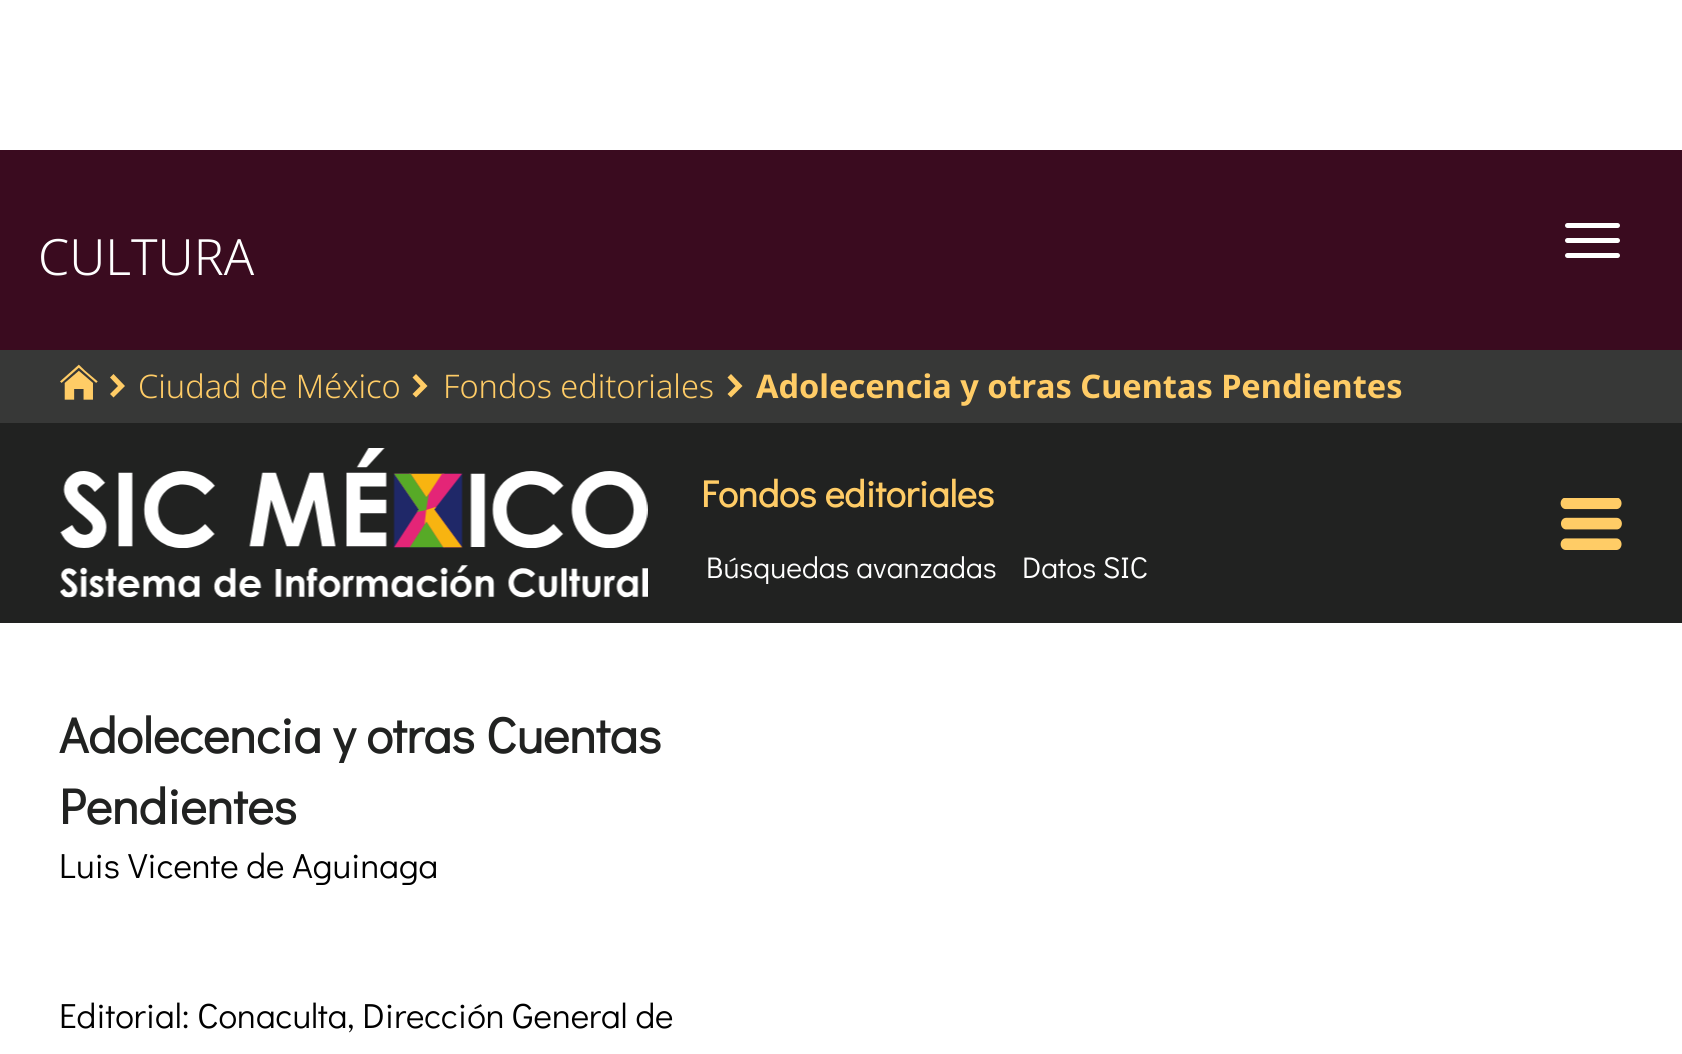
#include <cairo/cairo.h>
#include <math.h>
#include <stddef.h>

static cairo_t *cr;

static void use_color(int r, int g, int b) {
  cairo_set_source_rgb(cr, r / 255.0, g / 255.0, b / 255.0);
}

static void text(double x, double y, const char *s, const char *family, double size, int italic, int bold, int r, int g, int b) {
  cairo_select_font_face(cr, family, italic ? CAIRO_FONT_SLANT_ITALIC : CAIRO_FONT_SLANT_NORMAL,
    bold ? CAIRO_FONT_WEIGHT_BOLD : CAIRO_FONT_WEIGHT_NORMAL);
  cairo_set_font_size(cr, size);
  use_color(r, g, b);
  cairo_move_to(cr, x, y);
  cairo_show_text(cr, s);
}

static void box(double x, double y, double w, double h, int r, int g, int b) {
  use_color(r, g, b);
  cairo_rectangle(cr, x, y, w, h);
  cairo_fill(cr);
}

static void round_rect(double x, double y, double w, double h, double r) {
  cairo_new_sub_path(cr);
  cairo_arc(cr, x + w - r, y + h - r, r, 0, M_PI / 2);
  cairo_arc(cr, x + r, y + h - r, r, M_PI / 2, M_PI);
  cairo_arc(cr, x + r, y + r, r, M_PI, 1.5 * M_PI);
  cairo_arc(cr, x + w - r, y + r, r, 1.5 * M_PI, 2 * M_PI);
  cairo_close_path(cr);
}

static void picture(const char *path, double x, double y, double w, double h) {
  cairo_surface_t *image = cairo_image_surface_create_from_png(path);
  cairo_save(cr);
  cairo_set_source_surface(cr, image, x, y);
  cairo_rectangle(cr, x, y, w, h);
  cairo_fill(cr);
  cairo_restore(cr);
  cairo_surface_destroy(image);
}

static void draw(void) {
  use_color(255, 255, 255);
  cairo_paint(cr);
  box(0, 150, 1682, 200, 58, 11, 31);
  use_color(255, 255, 255);
  round_rect(1565, 223, 55, 5, 2.5);
  cairo_fill(cr);
  round_rect(1565, 238, 55, 5, 2.5);
  cairo_fill(cr);
  round_rect(1565, 253, 55, 5, 2.5);
  cairo_fill(cr);
  box(0, 350, 1682, 73, 55, 56, 55);
  picture("img_01.png", 60, 364, 38, 36);
  use_color(255, 204, 102);
  cairo_new_path(cr);
  cairo_move_to(cr, 125, 386);
  cairo_line_to(cr, 113.5, 397.5);
  cairo_line_to(cr, 110, 394);
  cairo_line_to(cr, 118, 386);
  cairo_line_to(cr, 110, 377.5);
  cairo_line_to(cr, 113.5, 374);
  cairo_close_path(cr);
  cairo_fill(cr);
  cairo_new_path(cr);
  cairo_move_to(cr, 427.5, 386);
  cairo_line_to(cr, 416, 397.5);
  cairo_line_to(cr, 412.5, 394);
  cairo_line_to(cr, 420.5, 386);
  cairo_line_to(cr, 412.5, 377.5);
  cairo_line_to(cr, 416, 374);
  cairo_close_path(cr);
  cairo_fill(cr);
  cairo_new_path(cr);
  cairo_move_to(cr, 742.5, 386);
  cairo_line_to(cr, 731, 397.5);
  cairo_line_to(cr, 727.5, 394);
  cairo_line_to(cr, 735.5, 386);
  cairo_line_to(cr, 727.5, 377.5);
  cairo_line_to(cr, 731, 374);
  cairo_close_path(cr);
  cairo_fill(cr);
  box(0, 423, 1682, 200, 33, 34, 33);
  picture("img_02.png", 60, 448, 588, 150);
  picture("img_03.png", 1560, 498, 62, 52);
  text(38, 275, "CULTURA", "Noto Sans Light", 50, 0, 0, 255, 255, 255);
  text(138, 398, "Ciudad de México", "Noto Sans Light", 32.5, 0, 0, 255, 204, 102);
  text(443, 398, "Fondos editoriales", "Noto Sans Light", 32.5, 0, 0, 255, 204, 102);
  text(756, 398, "Adolecencia y otras Cuentas Pendientes", "Noto Sans", 32.5, 0, 1, 255, 204, 102);
  text(701, 507, "Fondos editoriales", "Didact Gothic", 37.5, 0, 1, 255, 204, 102);
  text(706, 578, "Búsquedas avanzadas", "Didact Gothic", 30, 0, 0, 255, 255, 255);
  text(1022, 578, "Datos SIC", "Didact Gothic", 30, 0, 0, 255, 255, 255);
  text(59, 753, "Adolecencia y otras Cuentas", "Didact Gothic", 50, 0, 1, 33, 34, 33);
  text(59, 824, "Pendientes", "Didact Gothic", 50, 0, 1, 33, 34, 33);
  text(59, 878, "Luis Vicente de Aguinaga", "Didact Gothic", 35, 0, 0, 0, 0, 0);
  text(59, 1028, "Editorial: Conaculta, Dirección General de", "Didact Gothic", 35, 0, 0, 0, 0, 0);
}

int main(void) {
  cairo_surface_t *surface = cairo_image_surface_create(CAIRO_FORMAT_RGB24, 1682, 1054);
  cr = cairo_create(surface);
  cairo_font_options_t *options = cairo_font_options_create();
  cairo_font_options_set_hint_metrics(options, CAIRO_HINT_METRICS_OFF);
  cairo_font_options_set_hint_style(options, CAIRO_HINT_STYLE_NONE);
  cairo_set_font_options(cr, options);
  cairo_set_miter_limit(cr, 4);
  draw();
  cairo_surface_write_to_png(surface, "out.png");
  cairo_font_options_destroy(options);
  cairo_destroy(cr);
  cairo_surface_destroy(surface);
  return 0;
}
